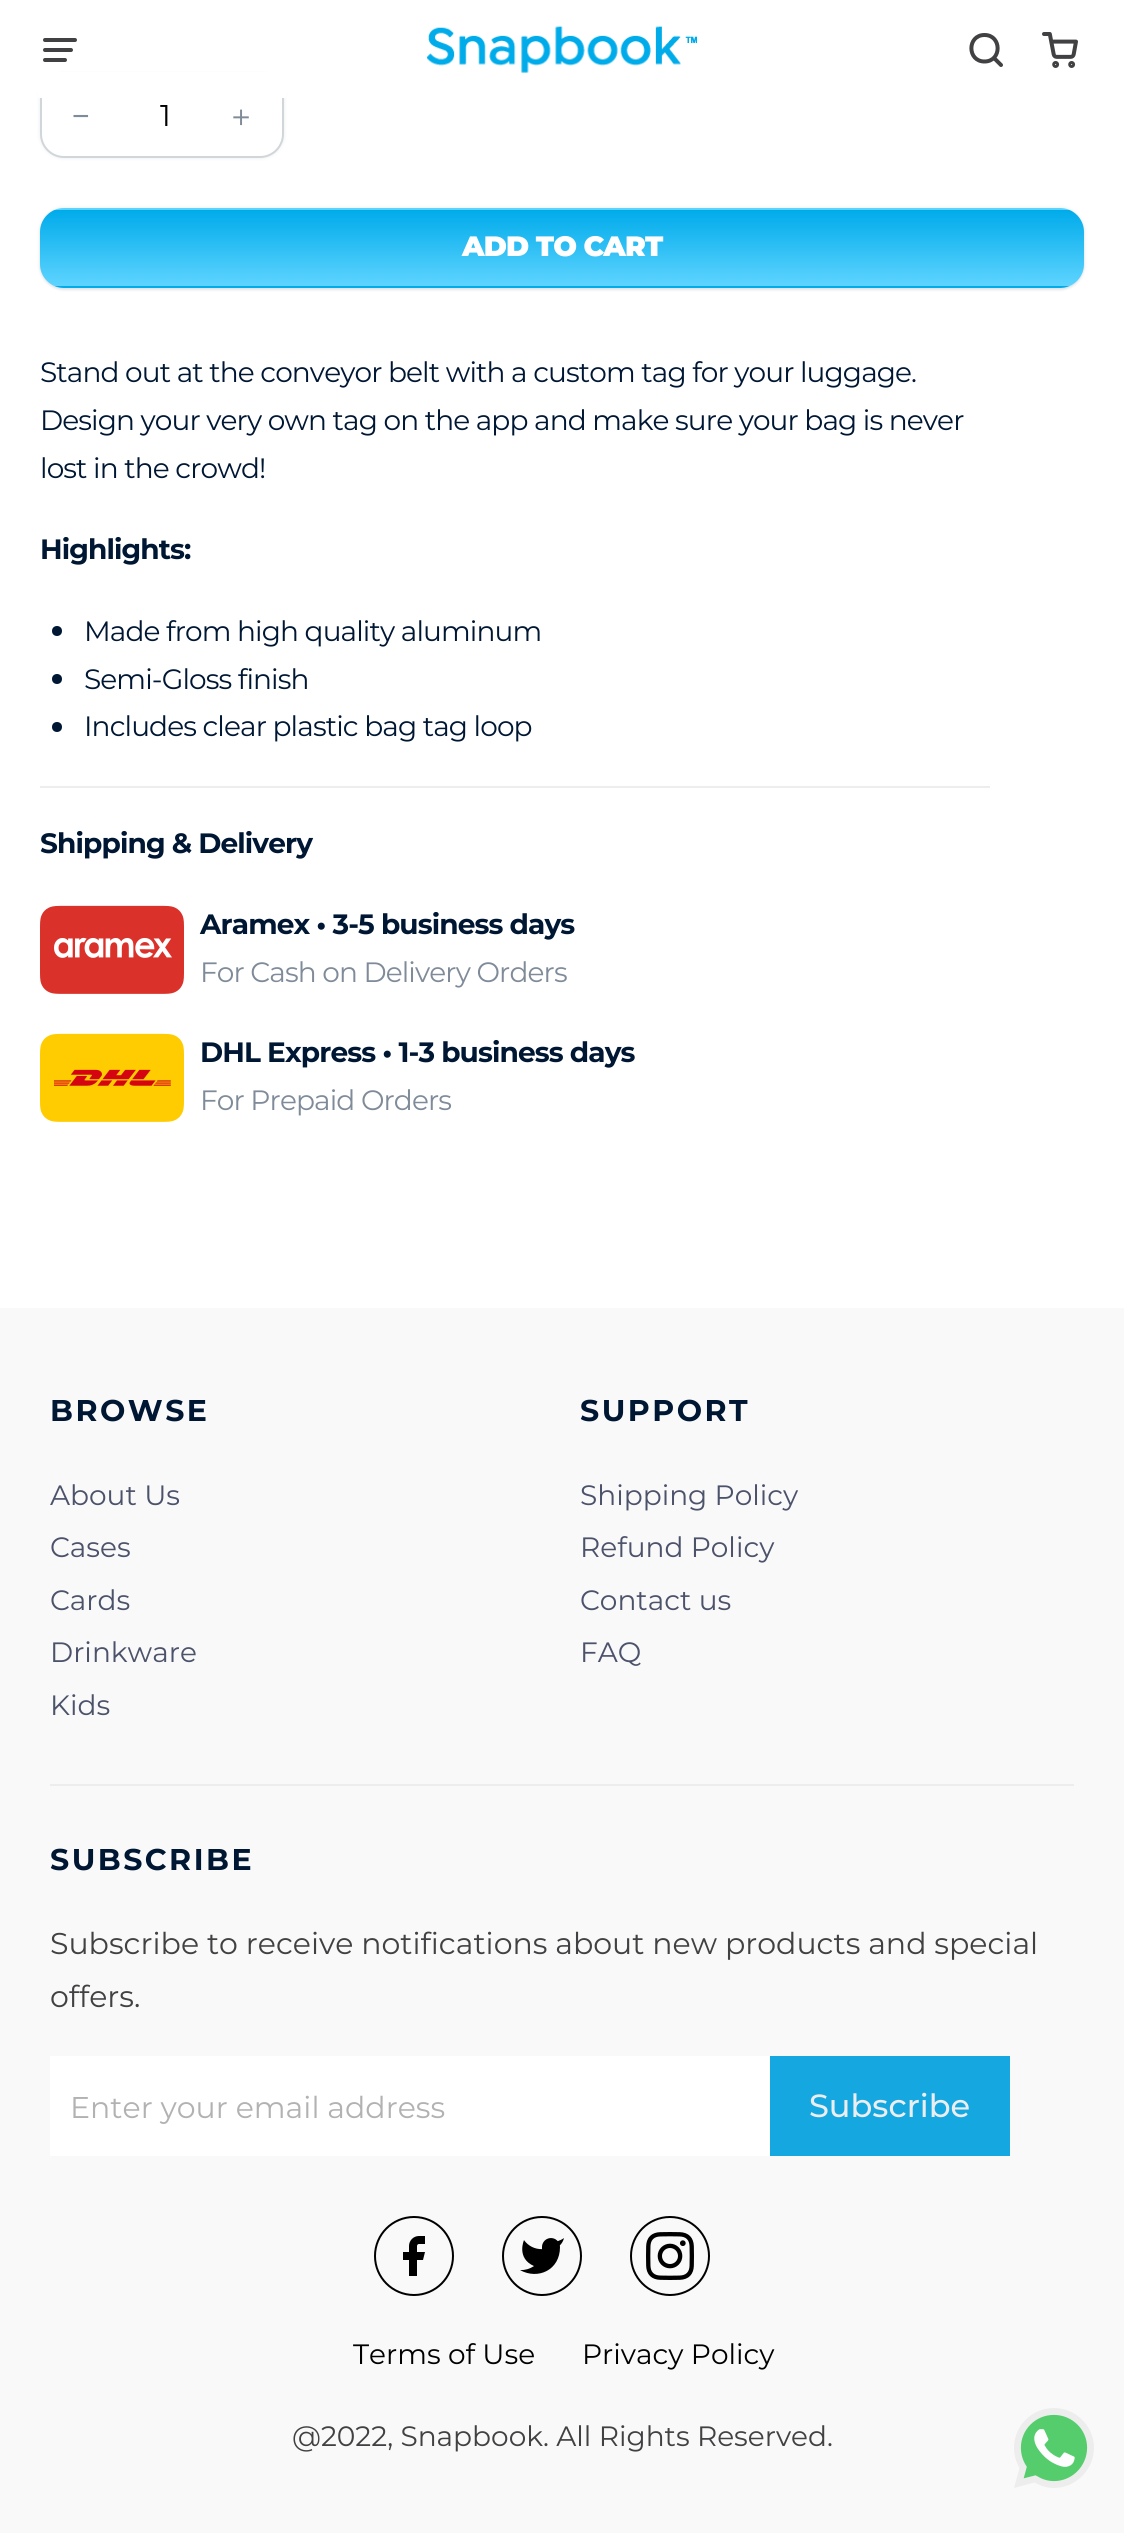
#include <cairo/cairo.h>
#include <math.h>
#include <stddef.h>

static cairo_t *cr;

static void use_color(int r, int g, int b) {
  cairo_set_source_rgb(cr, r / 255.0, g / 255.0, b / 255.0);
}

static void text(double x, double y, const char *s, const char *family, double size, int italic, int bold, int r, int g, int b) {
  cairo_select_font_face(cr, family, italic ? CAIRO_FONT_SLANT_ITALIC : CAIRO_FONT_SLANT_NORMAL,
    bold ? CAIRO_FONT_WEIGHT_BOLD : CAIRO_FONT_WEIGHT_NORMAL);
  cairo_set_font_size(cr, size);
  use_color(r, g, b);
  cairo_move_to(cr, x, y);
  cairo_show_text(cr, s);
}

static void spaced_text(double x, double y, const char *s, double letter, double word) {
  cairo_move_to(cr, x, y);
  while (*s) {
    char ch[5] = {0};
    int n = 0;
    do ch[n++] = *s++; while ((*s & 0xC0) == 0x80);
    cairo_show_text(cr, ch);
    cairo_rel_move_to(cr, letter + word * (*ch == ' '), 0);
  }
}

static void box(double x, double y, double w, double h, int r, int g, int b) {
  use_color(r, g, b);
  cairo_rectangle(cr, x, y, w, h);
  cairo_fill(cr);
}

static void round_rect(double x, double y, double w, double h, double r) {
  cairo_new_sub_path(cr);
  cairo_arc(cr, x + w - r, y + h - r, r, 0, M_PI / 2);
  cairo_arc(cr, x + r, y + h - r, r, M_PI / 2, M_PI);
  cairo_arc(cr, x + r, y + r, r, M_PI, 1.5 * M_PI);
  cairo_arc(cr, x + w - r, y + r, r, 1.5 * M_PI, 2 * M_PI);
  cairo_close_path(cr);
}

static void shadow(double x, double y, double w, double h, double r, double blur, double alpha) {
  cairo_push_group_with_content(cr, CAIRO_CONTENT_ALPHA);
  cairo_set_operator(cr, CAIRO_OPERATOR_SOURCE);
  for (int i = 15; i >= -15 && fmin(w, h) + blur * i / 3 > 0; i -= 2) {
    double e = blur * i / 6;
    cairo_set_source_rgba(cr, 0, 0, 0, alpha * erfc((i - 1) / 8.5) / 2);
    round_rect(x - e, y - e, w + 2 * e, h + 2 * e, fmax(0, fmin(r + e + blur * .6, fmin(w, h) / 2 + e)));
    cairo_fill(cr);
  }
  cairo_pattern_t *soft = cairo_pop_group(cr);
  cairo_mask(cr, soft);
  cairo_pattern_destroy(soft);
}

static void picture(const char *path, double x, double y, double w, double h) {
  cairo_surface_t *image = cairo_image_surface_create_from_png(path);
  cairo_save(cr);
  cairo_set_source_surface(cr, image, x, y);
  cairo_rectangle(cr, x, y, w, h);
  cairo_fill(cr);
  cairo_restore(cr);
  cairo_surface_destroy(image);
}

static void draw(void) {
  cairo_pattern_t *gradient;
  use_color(255, 255, 255);
  cairo_paint(cr);
  use_color(146, 159, 170);
  shadow(40, 74, 244, 84, 24, 2, 0.2);
  use_color(255, 255, 255);
  round_rect(41, 75, 242, 82, 23);
  cairo_fill_preserve(cr);
  use_color(209, 214, 218);
  cairo_stroke(cr);
  box(38, 72, 248, 26, 255, 255, 255);
  cairo_new_path(cr);
  cairo_move_to(cr, 45, 40);
  cairo_line_to(cr, 75, 40);
  cairo_move_to(cr, 45, 50);
  cairo_line_to(cr, 71, 50);
  cairo_move_to(cr, 45, 60);
  cairo_line_to(cr, 65, 60);
  use_color(65, 64, 66);
  cairo_set_line_width(cr, 4);
  cairo_set_line_cap(cr, CAIRO_LINE_CAP_ROUND);
  cairo_set_line_join(cr, CAIRO_LINE_JOIN_ROUND);
  cairo_stroke(cr);
  picture("img_01.png", 427, 26, 270, 47);
  cairo_new_path(cr);
  cairo_move_to(cr, 984.5, 35);
  cairo_curve_to(cr, 967, 35, 967, 61.5, 984.5, 61.5);
  cairo_curve_to(cr, 1002, 61.5, 1002, 35, 984.5, 35);
  cairo_close_path(cr);
  cairo_move_to(cr, 1001, 65);
  cairo_line_to(cr, 994, 58);
  cairo_close_path(cr);
  cairo_stroke(cr);
  picture("img_02.png", 1042, 32, 36, 36);
  use_color(146, 159, 170);
  shadow(40, 208, 1044, 80, 24, 2, 0.25);
  shadow(40, 210, 1044, 80, 24, 1, 0.2);
  cairo_save(cr);
  round_rect(40, 208, 1044, 80, 24);
  cairo_clip(cr);
  gradient = cairo_pattern_create_linear(562, 134, 562, 210);
  cairo_pattern_add_color_stop_rgba(gradient, 0, 0, 0.671, 0.918, 1);
  cairo_pattern_add_color_stop_rgba(gradient, 1, 0.369, 0.831, 1, 1);
  cairo_set_source(cr, gradient);
  cairo_pattern_destroy(gradient);
  cairo_rectangle(cr, 54, 208, 1016, 2);
  cairo_fill(cr);
  gradient = cairo_pattern_create_linear(562, 210, 562, 286);
  cairo_pattern_add_color_stop_rgba(gradient, 0, 0, 0.671, 0.918, 1);
  cairo_pattern_add_color_stop_rgba(gradient, 1, 0.369, 0.831, 1, 1);
  cairo_set_source(cr, gradient);
  cairo_pattern_destroy(gradient);
  cairo_rectangle(cr, 40, 210, 1044, 76);
  cairo_fill(cr);
  gradient = cairo_pattern_create_linear(562, 286, 562, 362);
  cairo_pattern_add_color_stop_rgba(gradient, 0, 0, 0.671, 0.918, 1);
  cairo_pattern_add_color_stop_rgba(gradient, 1, 0.369, 0.831, 1, 1);
  cairo_set_source(cr, gradient);
  cairo_pattern_destroy(gradient);
  cairo_rectangle(cr, 54, 286, 1016, 2);
  cairo_fill(cr);
  cairo_restore(cr);
  use_color(0, 23, 52);
  cairo_arc(cr, 57, 631, 5, 0, 2 * M_PI);
  cairo_fill(cr);
  cairo_arc(cr, 57, 679, 5, 0, 2 * M_PI);
  cairo_fill(cr);
  cairo_arc(cr, 57, 727, 5, 0, 2 * M_PI);
  cairo_fill(cr);
  box(40, 786, 950, 2, 236, 237, 238);
  picture("img_03.png", 40, 905, 144, 89);
  picture("img_04.png", 40, 1033, 144, 89);
  box(0, 1308, 1124, 1225, 249, 249, 249);
  box(50, 1784, 1024, 2, 236, 237, 238);
  box(50, 2056, 720, 100, 255, 255, 255);
  box(770, 2056, 240, 100, 21, 167, 224);
  cairo_arc(cr, 414, 2256, 39, 0, 2 * M_PI);
  use_color(0, 0, 0);
  cairo_set_line_width(cr, 2);
  cairo_set_line_cap(cr, CAIRO_LINE_CAP_BUTT);
  cairo_set_line_join(cr, CAIRO_LINE_JOIN_MITER);
  cairo_stroke(cr);
  picture("img_05.png", 403, 2236, 22, 40);
  cairo_arc(cr, 542, 2256, 39, 0, 2 * M_PI);
  cairo_stroke(cr);
  picture("img_06.png", 520, 2238, 44, 36);
  cairo_arc(cr, 670, 2256, 39, 0, 2 * M_PI);
  cairo_stroke(cr);
  picture("img_07.png", 646, 2232, 48, 48);
  picture("img_08.png", 1014, 2408, 80, 80);
  cairo_select_font_face(cr, "Liberation Sans", CAIRO_FONT_SLANT_NORMAL, CAIRO_FONT_WEIGHT_NORMAL);
  cairo_set_font_size(cr, 30);
  use_color(128, 139, 153);
  spaced_text(72, 126, "−", 2, 0);
  text(160, 126, "1", "Montserrat", 30, 0, 0, 0, 0, 0);
  cairo_select_font_face(cr, "WenQuanYi Zen Hei Medium", CAIRO_FONT_SLANT_NORMAL, CAIRO_FONT_WEIGHT_NORMAL);
  use_color(128, 139, 153);
  spaced_text(226, 126, "＋", 2, 0);
  cairo_select_font_face(cr, "Montserrat Black", CAIRO_FONT_SLANT_NORMAL, CAIRO_FONT_WEIGHT_NORMAL);
  cairo_set_font_size(cr, 28);
  use_color(255, 255, 255);
  spaced_text(462, 256, "ADD TO CART", -0.88, 0);
  cairo_select_font_face(cr, "Montserrat", CAIRO_FONT_SLANT_NORMAL, CAIRO_FONT_WEIGHT_NORMAL);
  use_color(0, 23, 52);
  spaced_text(40, 382, "Stand out at the conveyor belt with a custom tag for your luggage.", -0.88, 0);
  spaced_text(40, 430, "Design your very own tag on the app and make sure your bag is never", -0.88, 0);
  spaced_text(40, 478, "lost in the crowd!", -0.88, 0);
  cairo_select_font_face(cr, "Montserrat", CAIRO_FONT_SLANT_NORMAL, CAIRO_FONT_WEIGHT_BOLD);
  spaced_text(40, 559, "Highlights:", -0.88, 0);
  cairo_select_font_face(cr, "Montserrat", CAIRO_FONT_SLANT_NORMAL, CAIRO_FONT_WEIGHT_NORMAL);
  spaced_text(84, 641, "Made from high quality aluminum", -0.88, 0);
  spaced_text(84, 689, "Semi-Gloss finish", -0.88, 0);
  spaced_text(84, 736, "Includes clear plastic bag tag loop", -0.88, 0);
  cairo_select_font_face(cr, "Montserrat", CAIRO_FONT_SLANT_NORMAL, CAIRO_FONT_WEIGHT_BOLD);
  spaced_text(40, 853, "Shipping & Delivery", -0.88, 0);
  spaced_text(200, 934, "Aramex • 3-5 business days", -0.88, 0);
  cairo_select_font_face(cr, "Montserrat", CAIRO_FONT_SLANT_NORMAL, CAIRO_FONT_WEIGHT_NORMAL);
  use_color(128, 139, 153);
  spaced_text(200, 982, "For Cash on Delivery Orders", -0.88, 0);
  cairo_select_font_face(cr, "Montserrat", CAIRO_FONT_SLANT_NORMAL, CAIRO_FONT_WEIGHT_BOLD);
  use_color(0, 23, 52);
  spaced_text(200, 1062, "DHL Express • 1-3 business days", -0.88, 0);
  cairo_select_font_face(cr, "Montserrat", CAIRO_FONT_SLANT_NORMAL, CAIRO_FONT_WEIGHT_NORMAL);
  use_color(128, 139, 153);
  spaced_text(200, 1110, "For Prepaid Orders", -0.88, 0);
  cairo_select_font_face(cr, "Montserrat", CAIRO_FONT_SLANT_NORMAL, CAIRO_FONT_WEIGHT_BOLD);
  cairo_set_font_size(cr, 30);
  use_color(0, 23, 52);
  spaced_text(50, 1421, "BROWSE", 2.5, 0);
  text(50, 1505, "About Us", "Montserrat", 28, 0, 0, 75, 82, 106);
  text(50, 1557, "Cases", "Montserrat", 28, 0, 0, 75, 82, 106);
  text(50, 1610, "Cards", "Montserrat", 28, 0, 0, 75, 82, 106);
  text(50, 1662, "Drinkware", "Montserrat", 28, 0, 0, 75, 82, 106);
  text(50, 1715, "Kids", "Montserrat", 28, 0, 0, 75, 82, 106);
  cairo_select_font_face(cr, "Montserrat", CAIRO_FONT_SLANT_NORMAL, CAIRO_FONT_WEIGHT_BOLD);
  cairo_set_font_size(cr, 30);
  use_color(0, 23, 52);
  spaced_text(580, 1421, "SUPPORT", 2.5, 0);
  text(580, 1505, "Shipping Policy", "Montserrat", 28, 0, 0, 75, 82, 106);
  text(580, 1557, "Refund Policy", "Montserrat", 28, 0, 0, 75, 82, 106);
  text(580, 1610, "Contact us", "Montserrat", 28, 0, 0, 75, 82, 106);
  text(580, 1662, "FAQ", "Montserrat", 28, 0, 0, 75, 82, 106);
  cairo_select_font_face(cr, "Montserrat", CAIRO_FONT_SLANT_NORMAL, CAIRO_FONT_WEIGHT_BOLD);
  cairo_set_font_size(cr, 30);
  use_color(0, 23, 52);
  spaced_text(50, 1870, "SUBSCRIBE", 2.5, 0);
  text(50, 1954, "Subscribe to receive notifications about new products and special", "Montserrat", 30, 0, 0, 65, 64, 66);
  text(50, 2007, "offers.", "Montserrat", 30, 0, 0, 65, 64, 66);
  text(70, 2118, "Enter your email address", "Montserrat", 30, 0, 0, 179, 178, 179);
  text(809, 2117, "Subscribe", "Montserrat Medium", 32, 0, 0, 236, 237, 238);
  text(353, 2364, "Terms of Use", "Montserrat", 28, 0, 0, 0, 0, 0);
  text(582, 2364, "Privacy Policy", "Montserrat", 28, 0, 0, 0, 0, 0);
  text(292, 2446, "@2022, Snapbook. All Rights Reserved.", "Montserrat", 28, 0, 0, 65, 64, 66);
}

int main(void) {
  cairo_surface_t *surface = cairo_image_surface_create(CAIRO_FORMAT_RGB24, 1124, 2533);
  cr = cairo_create(surface);
  cairo_font_options_t *options = cairo_font_options_create();
  cairo_font_options_set_hint_metrics(options, CAIRO_HINT_METRICS_OFF);
  cairo_font_options_set_hint_style(options, CAIRO_HINT_STYLE_NONE);
  cairo_set_font_options(cr, options);
  cairo_set_miter_limit(cr, 4);
  draw();
  cairo_surface_write_to_png(surface, "out.png");
  cairo_font_options_destroy(options);
  cairo_destroy(cr);
  cairo_surface_destroy(surface);
  return 0;
}
